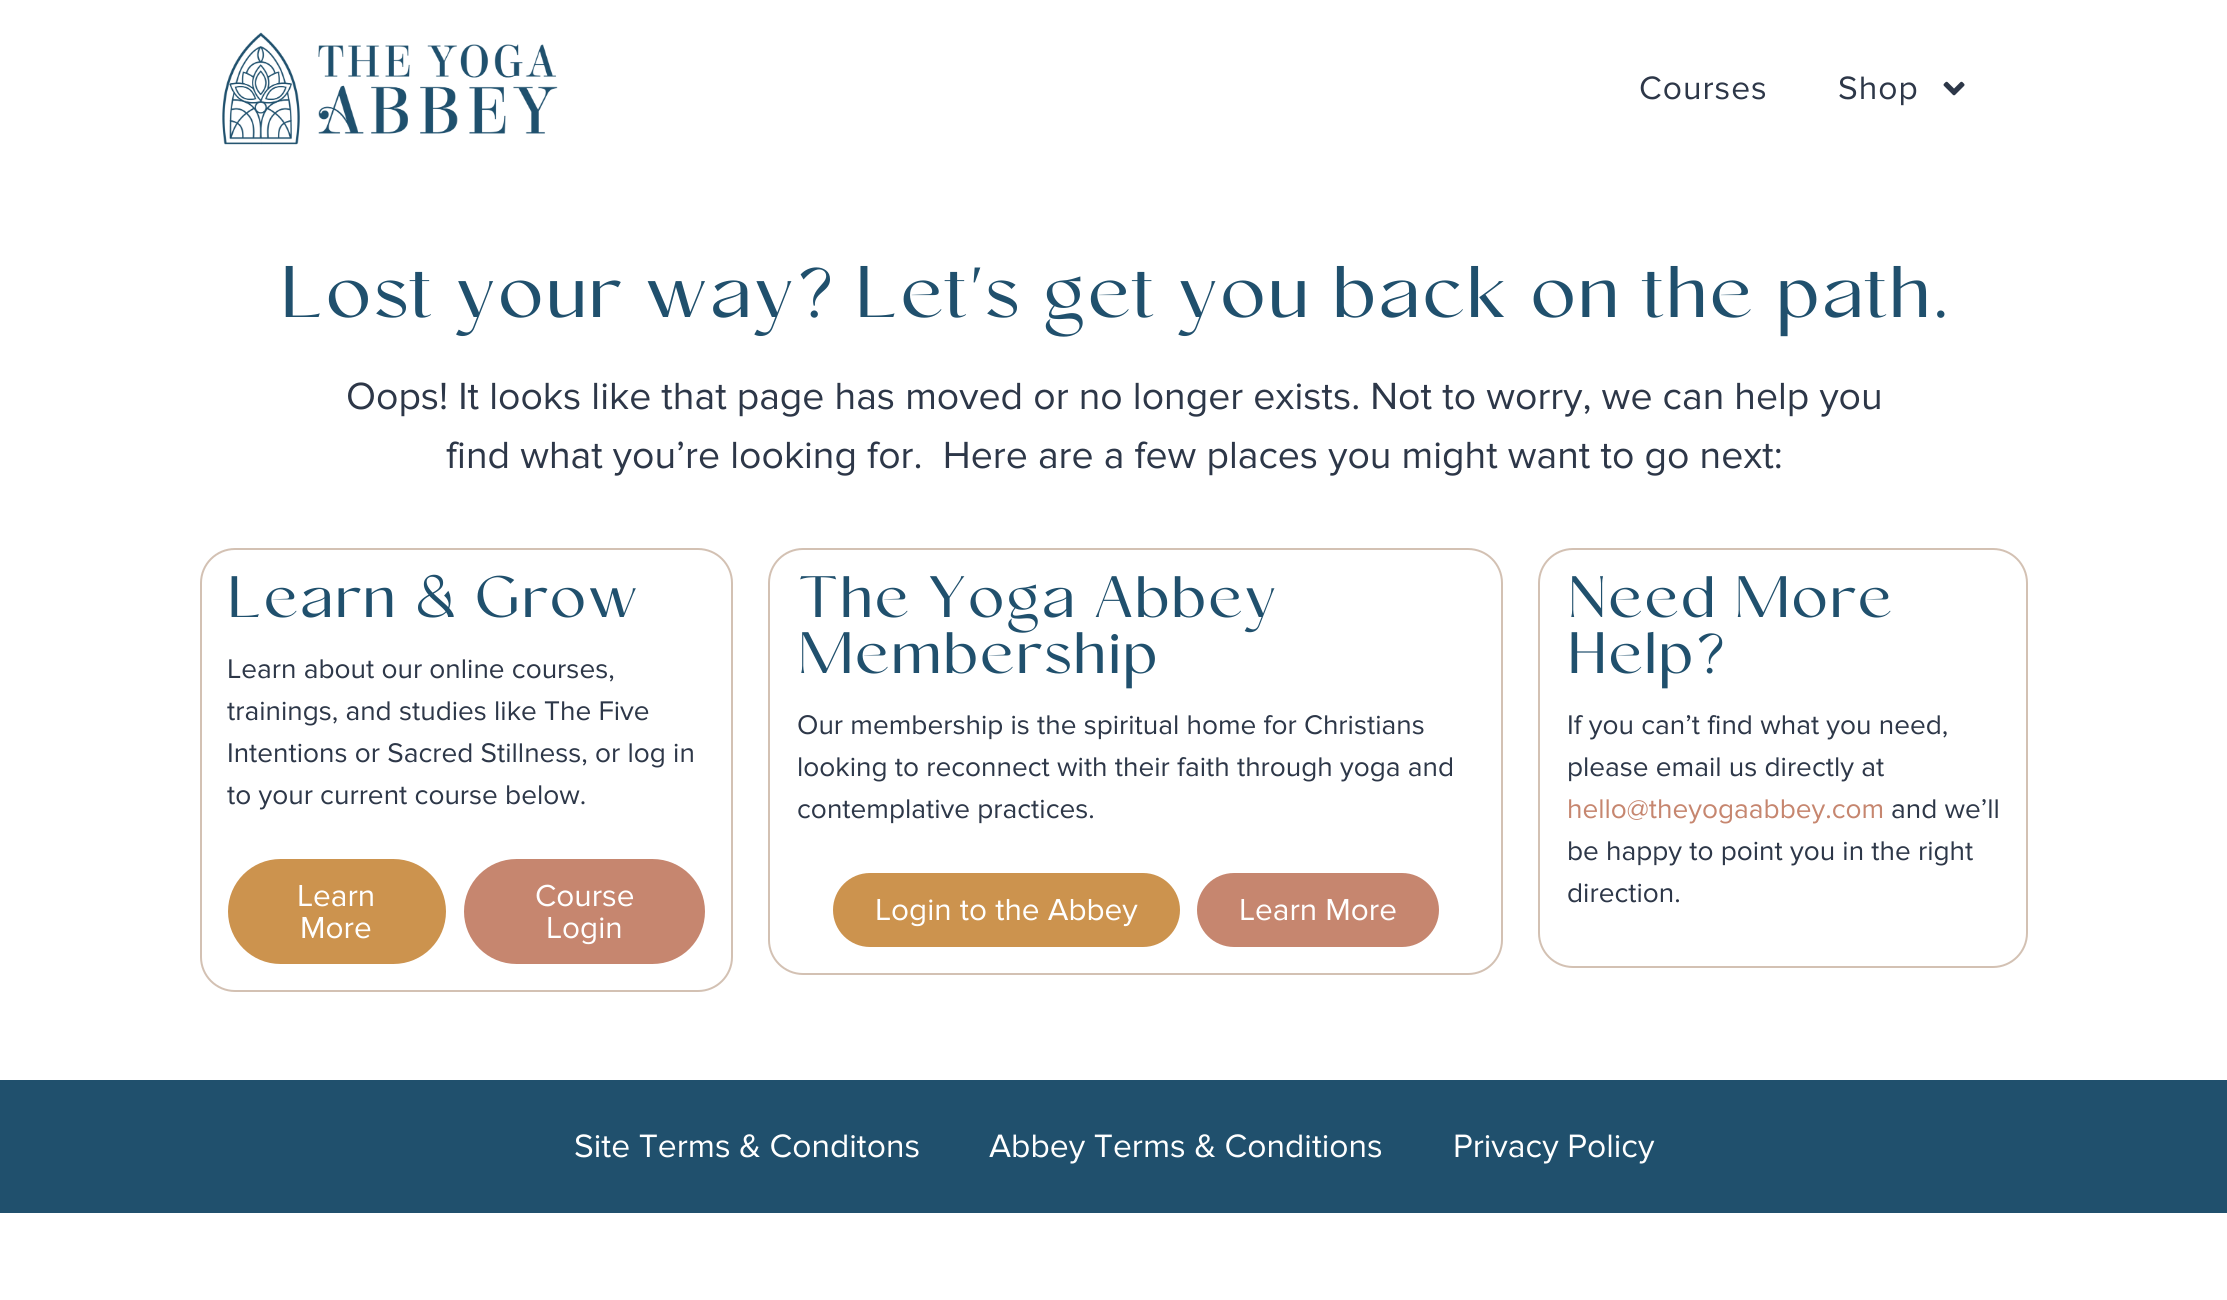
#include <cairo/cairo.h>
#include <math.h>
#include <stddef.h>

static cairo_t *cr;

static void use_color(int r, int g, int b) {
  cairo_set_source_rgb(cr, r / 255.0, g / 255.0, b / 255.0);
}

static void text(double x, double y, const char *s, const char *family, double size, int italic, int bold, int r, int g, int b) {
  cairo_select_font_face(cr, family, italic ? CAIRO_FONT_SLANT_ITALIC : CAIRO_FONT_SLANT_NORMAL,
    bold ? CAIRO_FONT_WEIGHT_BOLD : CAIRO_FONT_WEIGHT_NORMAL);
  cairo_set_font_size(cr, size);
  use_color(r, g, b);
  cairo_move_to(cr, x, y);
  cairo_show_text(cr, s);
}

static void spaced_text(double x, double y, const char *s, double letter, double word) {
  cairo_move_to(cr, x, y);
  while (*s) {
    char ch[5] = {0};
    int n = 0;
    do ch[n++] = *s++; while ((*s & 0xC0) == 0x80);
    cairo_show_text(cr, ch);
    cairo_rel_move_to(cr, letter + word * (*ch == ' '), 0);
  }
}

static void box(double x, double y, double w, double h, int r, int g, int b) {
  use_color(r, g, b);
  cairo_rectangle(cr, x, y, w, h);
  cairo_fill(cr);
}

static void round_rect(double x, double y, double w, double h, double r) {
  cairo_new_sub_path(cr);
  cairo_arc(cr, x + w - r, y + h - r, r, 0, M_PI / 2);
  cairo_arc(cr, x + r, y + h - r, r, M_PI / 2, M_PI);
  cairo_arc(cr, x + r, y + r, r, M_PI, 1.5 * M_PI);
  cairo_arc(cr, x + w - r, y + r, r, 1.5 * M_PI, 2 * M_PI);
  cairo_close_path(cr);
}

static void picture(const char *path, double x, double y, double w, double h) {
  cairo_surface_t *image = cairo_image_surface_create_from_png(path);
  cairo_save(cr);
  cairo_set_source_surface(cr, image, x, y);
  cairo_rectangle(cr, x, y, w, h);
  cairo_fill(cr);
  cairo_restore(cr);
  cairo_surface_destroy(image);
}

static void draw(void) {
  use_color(255, 255, 255);
  cairo_paint(cr);
  picture("img_01.png", 222, 32, 336, 113);
  picture("img_02.png", 1943, 81, 22, 15);
  round_rect(201, 549, 531, 442, 34);
  use_color(211, 193, 179);
  cairo_stroke(cr);
  use_color(204, 147, 78);
  round_rect(228, 859, 218, 105, 52.5);
  cairo_fill(cr);
  use_color(198, 134, 111);
  round_rect(464, 859, 241, 105, 52.5);
  cairo_fill(cr);
  round_rect(769, 549, 733, 425, 34);
  use_color(211, 193, 179);
  cairo_stroke(cr);
  use_color(204, 147, 78);
  round_rect(833, 873, 347, 74, 37);
  cairo_fill(cr);
  use_color(198, 134, 111);
  round_rect(1197, 873, 242, 74, 37);
  cairo_fill(cr);
  round_rect(1539, 549, 488, 418, 34);
  use_color(211, 193, 179);
  cairo_stroke(cr);
  box(0, 1080, 2227, 133, 32, 80, 109);
  cairo_select_font_face(cr, "Proxima Nova", CAIRO_FONT_SLANT_NORMAL, CAIRO_FONT_WEIGHT_NORMAL);
  cairo_set_font_size(cr, 33.6);
  use_color(45, 55, 72);
  spaced_text(1639, 99, "Courses", 1, 0);
  spaced_text(1838, 99, "Shop", 1, 0);
  text(280, 317, "Lost your way? Let's get you back on the path.", "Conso", 70, 0, 0, 32, 80, 109);
  text(346, 409, "Oops! It looks like that page has moved or no longer exists. Not to worry, we can help you", "Proxima Nova", 39.2, 0, 0, 45, 55, 72);
  text(446, 468, "find what you’re looking for.  Here are a few places you might want to go next:", "Proxima Nova", 39.2, 0, 0, 45, 55, 72);
  text(227, 617, "Learn & Grow", "Conso", 56, 0, 0, 32, 80, 109);
  text(227, 678, "Learn about our online courses,", "Proxima Nova", 28, 0, 0, 45, 55, 72);
  text(227, 720, "trainings, and studies like The Five", "Proxima Nova", 28, 0, 0, 45, 55, 72);
  text(227, 762, "Intentions or Sacred Stillness, or log in", "Proxima Nova", 28, 0, 0, 45, 55, 72);
  text(227, 804, "to your current course below.", "Proxima Nova", 28, 0, 0, 45, 55, 72);
  text(297, 906, "Learn", "Proxima Nova", 31.5, 0, 0, 255, 255, 255);
  text(300, 938, "More", "Proxima Nova", 31.5, 0, 0, 255, 255, 255);
  text(535, 906, "Course", "Proxima Nova", 31.5, 0, 0, 255, 255, 255);
  text(546, 938, "Login", "Proxima Nova", 31.5, 0, 0, 255, 255, 255);
  text(797, 617, "The Yoga Abbey", "Conso", 56, 0, 0, 32, 80, 109);
  text(797, 673, "Membership", "Conso", 56, 0, 0, 32, 80, 109);
  text(797, 734, "Our membership is the spiritual home for Christians", "Proxima Nova", 28, 0, 0, 45, 55, 72);
  text(797, 776, "looking to reconnect with their faith through yoga and", "Proxima Nova", 28, 0, 0, 45, 55, 72);
  text(797, 818, "contemplative practices.", "Proxima Nova", 28, 0, 0, 45, 55, 72);
  text(875, 920, "Login to the Abbey", "Proxima Nova", 31.5, 0, 0, 255, 255, 255);
  text(1239, 920, "Learn More", "Proxima Nova", 31.5, 0, 0, 255, 255, 255);
  text(1567, 617, "Need More", "Conso", 56, 0, 0, 32, 80, 109);
  text(1567, 673, "Help?", "Conso", 56, 0, 0, 32, 80, 109);
  text(1567, 734, "If you can’t find what you need,", "Proxima Nova", 28, 0, 0, 45, 55, 72);
  text(1567, 776, "please email us directly at", "Proxima Nova", 28, 0, 0, 45, 55, 72);
  text(1567, 818, "hello@theyogaabbey.com", "Proxima Nova", 28, 0, 0, 198, 134, 111);
  text(1891, 818, "and we’ll", "Proxima Nova", 28, 0, 0, 45, 55, 72);
  text(1567, 860, "be happy to point you in the right", "Proxima Nova", 28, 0, 0, 45, 55, 72);
  text(1567, 902, "direction.", "Proxima Nova", 28, 0, 0, 45, 55, 72);
  text(574, 1157, "Site Terms & Conditons", "Proxima Nova", 33.6, 0, 0, 255, 255, 255);
  text(989, 1157, "Abbey Terms & Conditions", "Proxima Nova", 33.6, 0, 0, 255, 255, 255);
  text(1453, 1157, "Privacy Policy", "Proxima Nova", 33.6, 0, 0, 255, 255, 255);
}

int main(void) {
  cairo_surface_t *surface = cairo_image_surface_create(CAIRO_FORMAT_RGB24, 2227, 1300);
  cr = cairo_create(surface);
  cairo_font_options_t *options = cairo_font_options_create();
  cairo_font_options_set_hint_metrics(options, CAIRO_HINT_METRICS_OFF);
  cairo_font_options_set_hint_style(options, CAIRO_HINT_STYLE_NONE);
  cairo_set_font_options(cr, options);
  cairo_set_miter_limit(cr, 4);
  draw();
  cairo_surface_write_to_png(surface, "out.png");
  cairo_font_options_destroy(options);
  cairo_destroy(cr);
  cairo_surface_destroy(surface);
  return 0;
}
